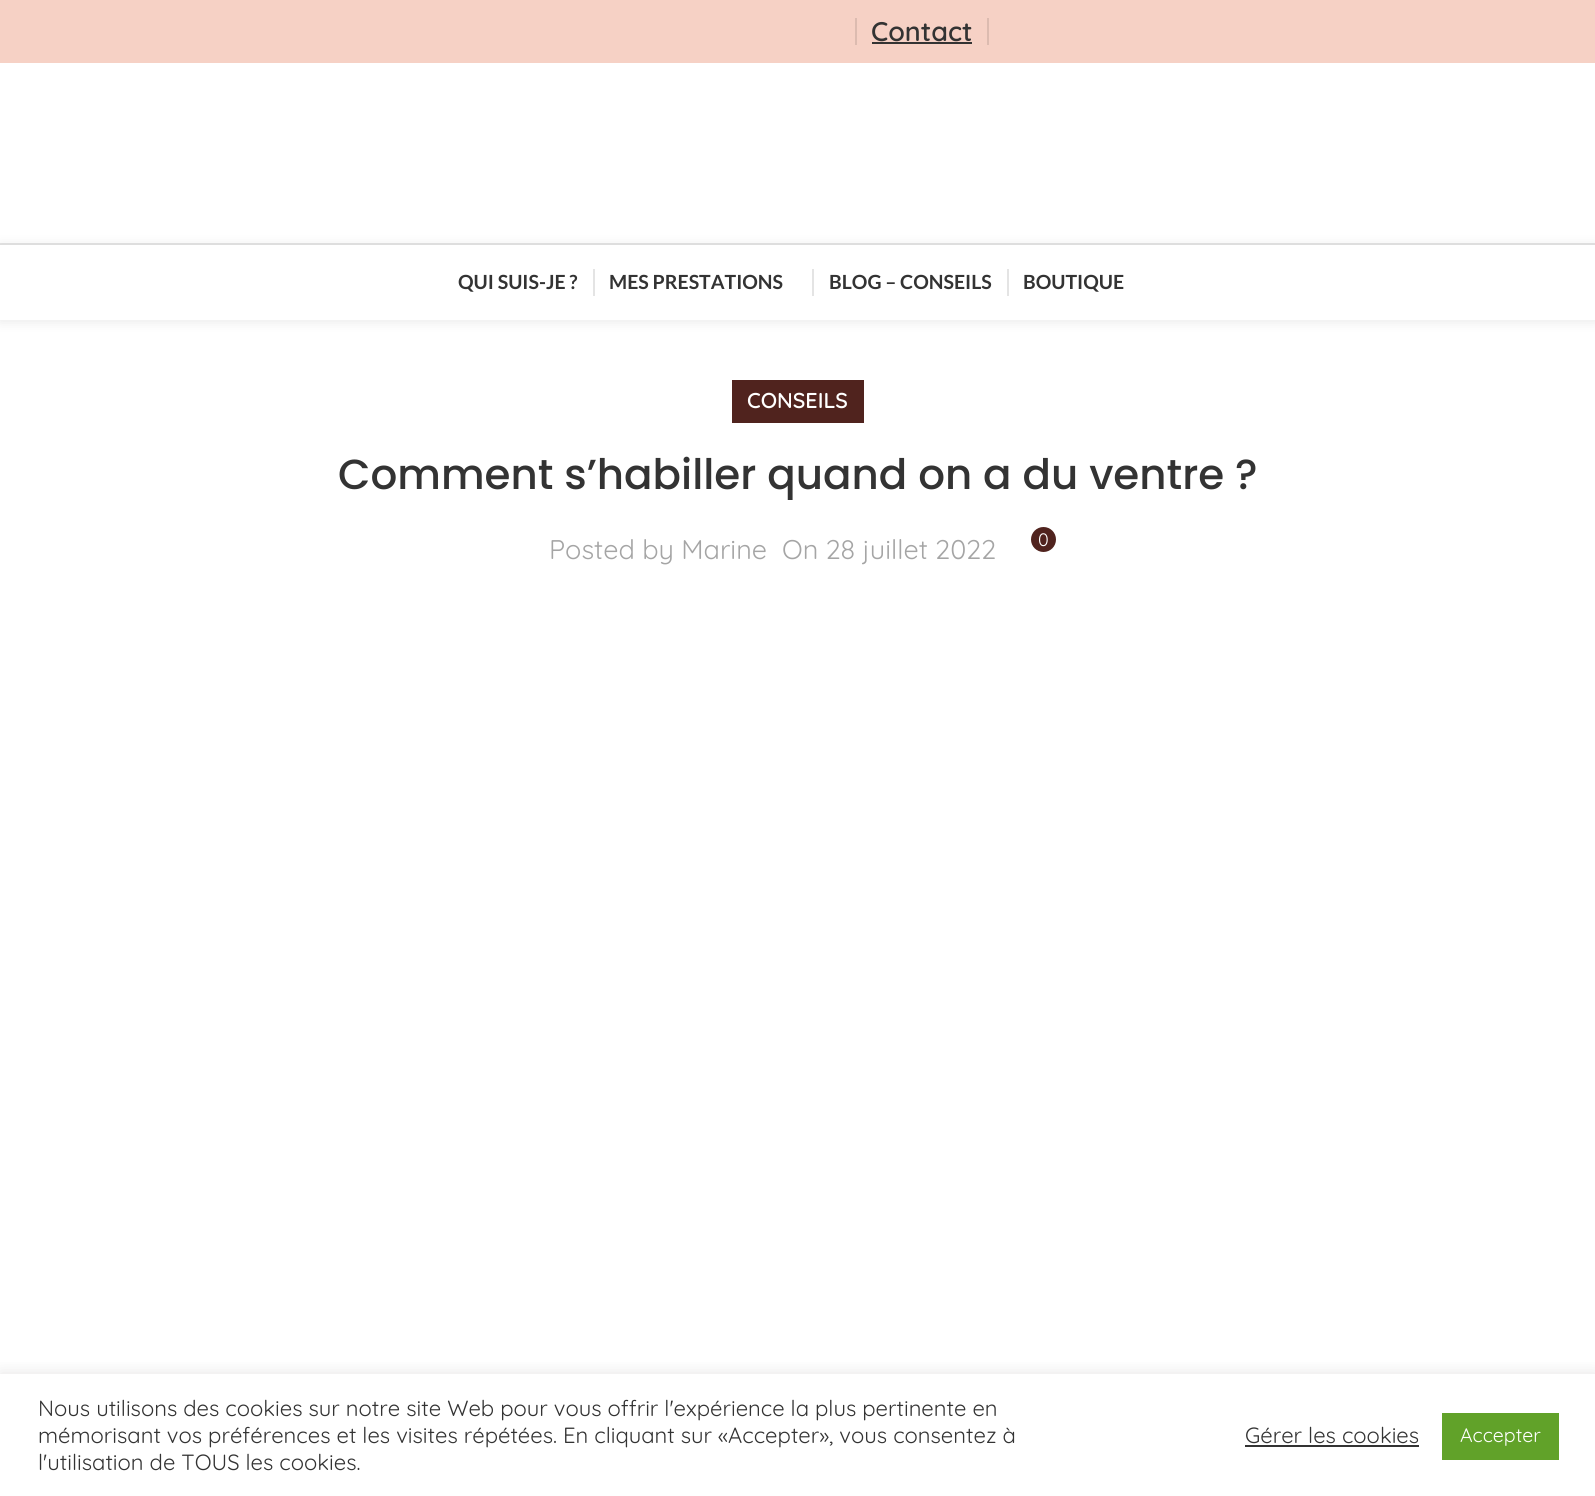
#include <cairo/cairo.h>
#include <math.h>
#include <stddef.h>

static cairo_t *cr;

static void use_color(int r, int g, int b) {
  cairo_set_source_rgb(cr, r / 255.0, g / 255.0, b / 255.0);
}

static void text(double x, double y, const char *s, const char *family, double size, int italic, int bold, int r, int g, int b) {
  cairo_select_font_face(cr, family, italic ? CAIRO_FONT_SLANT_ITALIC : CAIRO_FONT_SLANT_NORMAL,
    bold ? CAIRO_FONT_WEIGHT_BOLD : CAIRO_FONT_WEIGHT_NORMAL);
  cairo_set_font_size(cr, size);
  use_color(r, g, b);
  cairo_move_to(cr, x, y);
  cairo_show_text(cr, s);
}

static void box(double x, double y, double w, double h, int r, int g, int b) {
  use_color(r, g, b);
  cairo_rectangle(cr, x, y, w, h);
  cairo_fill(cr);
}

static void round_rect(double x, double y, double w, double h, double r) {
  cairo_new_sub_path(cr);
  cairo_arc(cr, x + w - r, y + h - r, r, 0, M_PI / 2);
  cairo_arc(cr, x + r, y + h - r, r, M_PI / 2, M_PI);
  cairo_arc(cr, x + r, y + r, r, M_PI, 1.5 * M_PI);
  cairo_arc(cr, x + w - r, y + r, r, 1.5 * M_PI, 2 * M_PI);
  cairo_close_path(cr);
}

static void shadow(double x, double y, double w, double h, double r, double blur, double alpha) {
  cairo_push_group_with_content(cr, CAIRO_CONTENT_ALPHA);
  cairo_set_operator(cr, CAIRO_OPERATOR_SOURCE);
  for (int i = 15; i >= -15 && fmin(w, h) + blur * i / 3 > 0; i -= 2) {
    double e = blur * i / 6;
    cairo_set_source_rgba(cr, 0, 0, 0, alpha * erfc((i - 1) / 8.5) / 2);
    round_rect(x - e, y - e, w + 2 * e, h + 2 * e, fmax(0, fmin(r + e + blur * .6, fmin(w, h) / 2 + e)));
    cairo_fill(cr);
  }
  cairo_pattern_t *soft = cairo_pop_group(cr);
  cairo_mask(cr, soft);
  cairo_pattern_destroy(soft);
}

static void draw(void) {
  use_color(255, 255, 255);
  cairo_paint(cr);
  box(0, 0, 1595, 63, 246, 209, 197);
  box(855, 18, 2, 27, 220, 187, 176);
  box(872, 42, 100, 2, 51, 51, 51);
  box(987, 18, 2, 27, 220, 187, 176);
  box(0, 243, 1595, 2, 230, 230, 230);
  use_color(0, 0, 0);
  shadow(0, 246, 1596, 75, 0, 6, 0.1);
  box(0, 245, 1595, 75, 255, 255, 255);
  box(593, 269, 2, 27, 228, 228, 228);
  box(812, 269, 2, 27, 228, 228, 228);
  box(1007, 269, 2, 27, 228, 228, 228);
  box(732, 380, 132, 43, 80, 35, 30);
  cairo_arc(cr, 1043.5, 539.5, 12.5, 0, 2 * M_PI);
  cairo_fill(cr);
  cairo_save(cr);
  cairo_rectangle(cr, 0, 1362, 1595, 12);
  cairo_clip(cr);
  use_color(172, 171, 171);
  shadow(0, 1373, 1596, 123, 0, 7.5, 0.3);
  cairo_restore(cr);
  box(1245, 1445, 174, 2, 51, 51, 51);
  box(1442, 1413, 117, 47, 97, 162, 41);
  text(871, 41, "Contact", "Quicksand SemiBold", 27, 0, 0, 51, 51, 51);
  text(458, 289, "QUI SUIS-JE ?", "Lato", 19.5, 0, 1, 51, 51, 51);
  text(609, 289, "MES PRESTATIONS", "Lato", 19.5, 0, 1, 51, 51, 51);
  text(829, 289, "BLOG – CONSEILS", "Lato", 19.5, 0, 1, 51, 51, 51);
  text(1023, 289, "BOUTIQUE", "Lato", 19.5, 0, 1, 51, 51, 51);
  text(747, 408, "CONSEILS", "Quicksand SemiBold", 21.5, 0, 0, 255, 255, 255);
  text(338, 489, "Comment s’habiller quand on a du ventre ?", "Poppins Medium", 42, 0, 0, 51, 51, 51);
  text(549, 559, "Posted by Marine", "Quicksand", 27, 0, 0, 165, 165, 165);
  text(782, 559, "On 28 juillet 2022", "Quicksand", 27, 0, 0, 165, 165, 165);
  text(1038, 546, "0", "Quicksand", 18, 0, 0, 255, 255, 255);
  text(38, 1416, "Nous utilisons des cookies sur notre site Web pour vous offrir l'expérience la plus pertinente en", "Quicksand", 22, 0, 0, 51, 51, 51);
  text(38, 1443, "mémorisant vos préférences et les visites répétées. En cliquant sur «Accepter», vous consentez à", "Quicksand", 22, 0, 0, 51, 51, 51);
  text(38, 1470, "l'utilisation de TOUS les cookies.", "Quicksand", 22, 0, 0, 51, 51, 51);
  text(1245, 1443, "Gérer les cookies", "Quicksand", 22, 0, 0, 51, 51, 51);
  text(1460, 1442, "Accepter", "Quicksand", 19.5, 0, 0, 255, 255, 255);
}

int main(void) {
  cairo_surface_t *surface = cairo_image_surface_create(CAIRO_FORMAT_RGB24, 1595, 1496);
  cr = cairo_create(surface);
  cairo_font_options_t *options = cairo_font_options_create();
  cairo_font_options_set_hint_metrics(options, CAIRO_HINT_METRICS_OFF);
  cairo_font_options_set_hint_style(options, CAIRO_HINT_STYLE_NONE);
  cairo_set_font_options(cr, options);
  cairo_set_miter_limit(cr, 4);
  draw();
  cairo_surface_write_to_png(surface, "out.png");
  cairo_font_options_destroy(options);
  cairo_destroy(cr);
  cairo_surface_destroy(surface);
  return 0;
}
